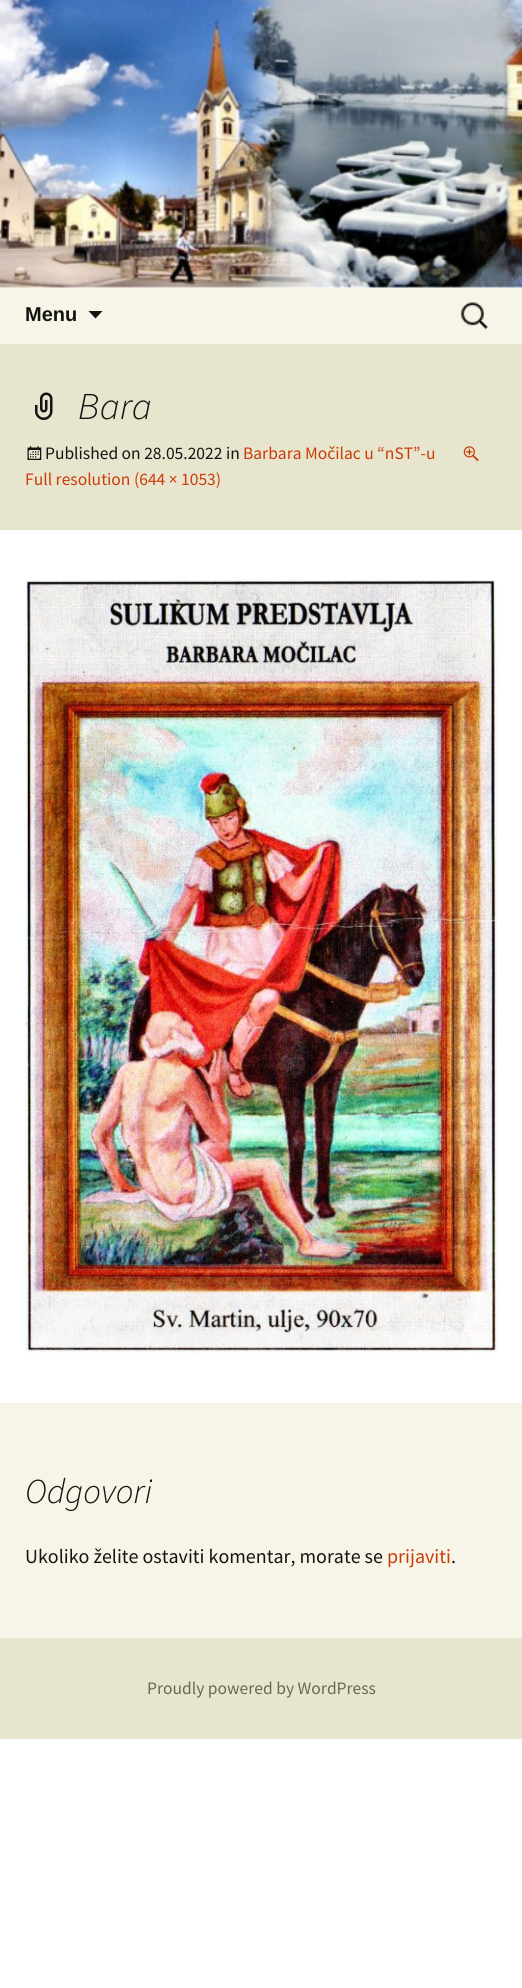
#include <cairo/cairo.h>
#include <math.h>
#include <stddef.h>

static cairo_t *cr;

static void use_color(int r, int g, int b) {
  cairo_set_source_rgb(cr, r / 255.0, g / 255.0, b / 255.0);
}

static void text(double x, double y, const char *s, const char *family, double size, int italic, int bold, int r, int g, int b) {
  cairo_select_font_face(cr, family, italic ? CAIRO_FONT_SLANT_ITALIC : CAIRO_FONT_SLANT_NORMAL,
    bold ? CAIRO_FONT_WEIGHT_BOLD : CAIRO_FONT_WEIGHT_NORMAL);
  cairo_set_font_size(cr, size);
  use_color(r, g, b);
  cairo_move_to(cr, x, y);
  cairo_show_text(cr, s);
}

static void box(double x, double y, double w, double h, int r, int g, int b) {
  use_color(r, g, b);
  cairo_rectangle(cr, x, y, w, h);
  cairo_fill(cr);
}

static void picture(const char *path, double x, double y, double w, double h) {
  cairo_surface_t *image = cairo_image_surface_create_from_png(path);
  cairo_save(cr);
  cairo_set_source_surface(cr, image, x, y);
  cairo_rectangle(cr, x, y, w, h);
  cairo_fill(cr);
  cairo_restore(cr);
  cairo_surface_destroy(image);
}

static void draw(void) {
  use_color(255, 255, 255);
  cairo_paint(cr);
  picture("img_01.png", 0, 0, 522, 288);
  box(0, 288, 522, 56, 247, 245, 231);
  use_color(20, 20, 18);
  cairo_new_path(cr);
  cairo_move_to(cr, 88.5, 311);
  cairo_line_to(cr, 95.5, 318.5);
  cairo_line_to(cr, 102.5, 311);
  cairo_close_path(cr);
  cairo_fill(cr);
  picture("img_02.png", 461, 302, 27, 27);
  box(0, 344, 522, 186, 232, 229, 206);
  picture("img_03.png", 35, 392, 18, 28);
  picture("img_04.png", 27, 446, 15, 14);
  picture("img_05.png", 463, 446, 16, 16);
  picture("img_06.png", 25, 580, 473, 773);
  box(0, 1403, 522, 235, 247, 245, 231);
  box(0, 1638, 522, 101, 232, 229, 206);
  text(25, 321, "Menu", "Liberation Sans", 20, 0, 1, 20, 20, 18);
  text(78, 419, "Bara", "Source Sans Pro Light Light", 38, 1, 0, 20, 20, 18);
  text(45, 459, "Published on 28.05.2022 in", "Source Sans Pro", 17.5, 0, 0, 20, 20, 18);
  text(243, 459, "Barbara Močilac u “nST”-u", "Source Sans Pro", 17.5, 0, 0, 202, 60, 8);
  text(25, 485, "Full resolution (644 × 1053)", "Source Sans Pro", 17.5, 0, 0, 202, 60, 8);
  text(25, 1503, "Odgovori", "Source Sans Pro Light Light", 35, 1, 0, 20, 20, 18);
  text(25, 1563, "Ukoliko želite ostaviti komentar, morate se", "Source Sans Pro", 20, 0, 0, 20, 20, 18);
  text(387, 1563, "prijaviti", "Source Sans Pro", 20, 0, 0, 202, 60, 8);
  text(451, 1563, ".", "Source Sans Pro", 20, 0, 0, 20, 20, 18);
  text(147, 1694, "Proudly powered by WordPress", "Source Sans Pro", 17.5, 0, 0, 104, 103, 88);
}

int main(void) {
  cairo_surface_t *surface = cairo_image_surface_create(CAIRO_FORMAT_RGB24, 522, 1988);
  cr = cairo_create(surface);
  cairo_font_options_t *options = cairo_font_options_create();
  cairo_font_options_set_hint_metrics(options, CAIRO_HINT_METRICS_OFF);
  cairo_font_options_set_hint_style(options, CAIRO_HINT_STYLE_NONE);
  cairo_set_font_options(cr, options);
  cairo_set_miter_limit(cr, 4);
  draw();
  cairo_surface_write_to_png(surface, "out.png");
  cairo_font_options_destroy(options);
  cairo_destroy(cr);
  cairo_surface_destroy(surface);
  return 0;
}
